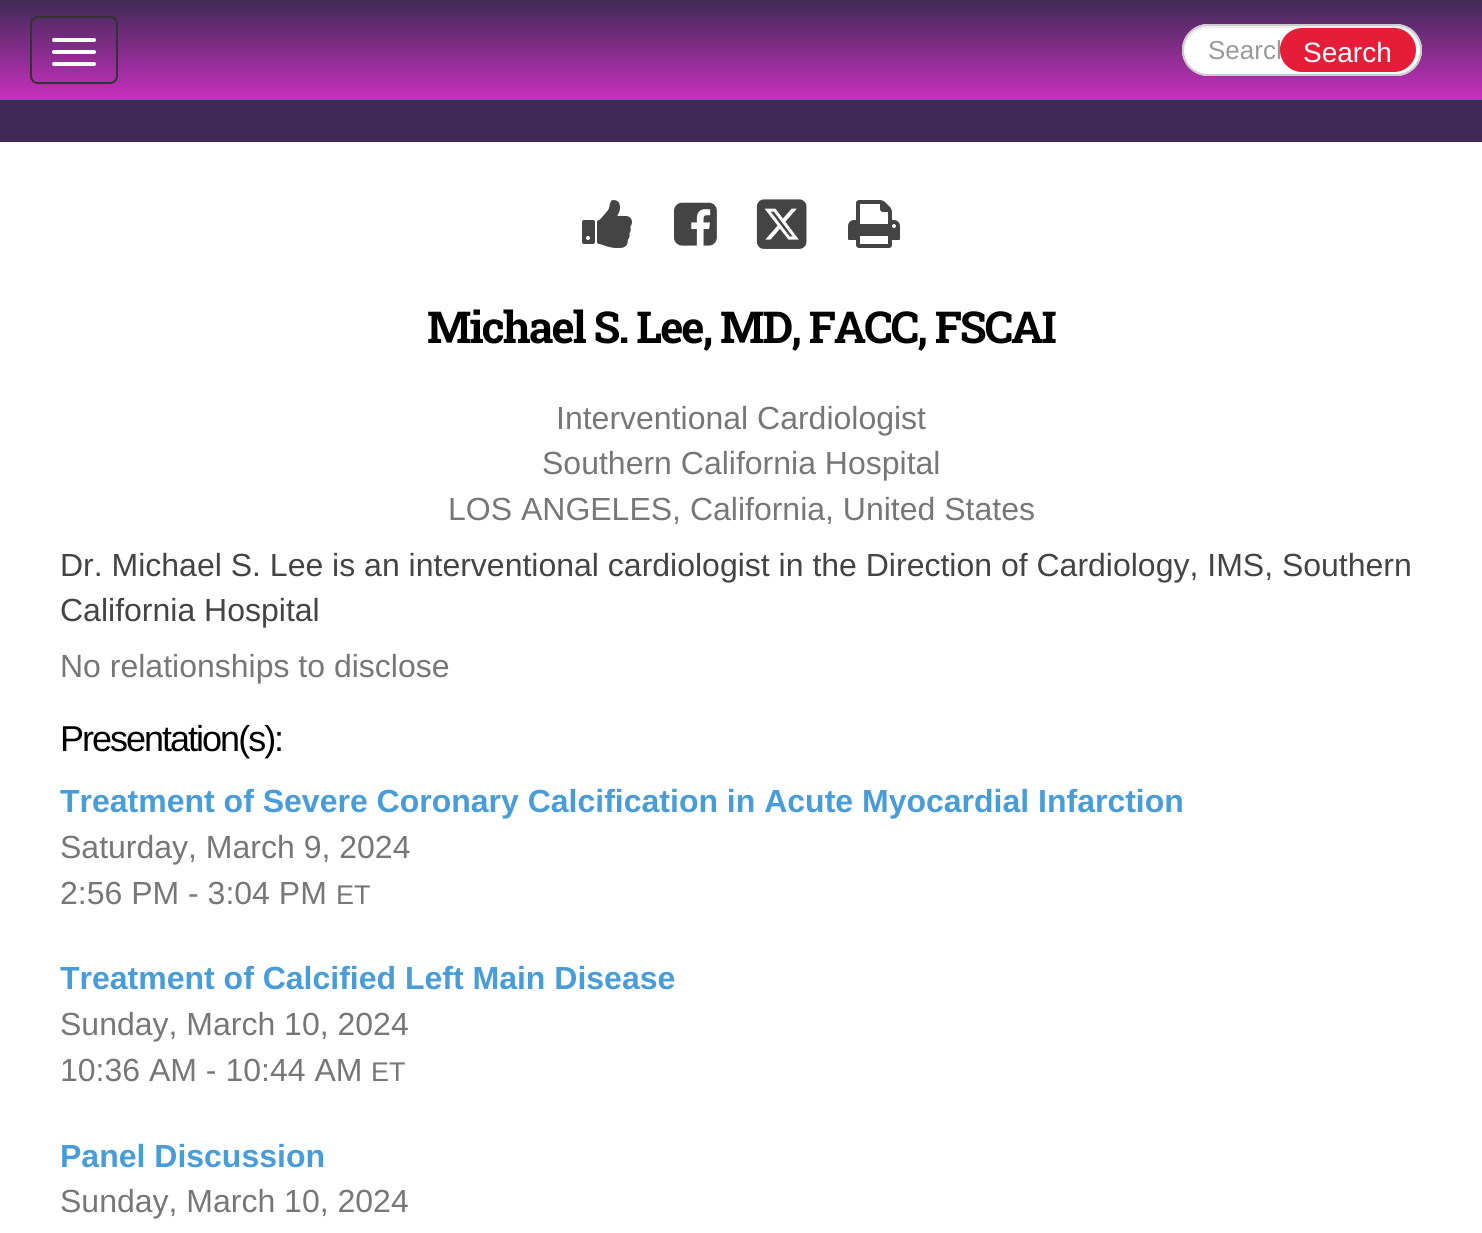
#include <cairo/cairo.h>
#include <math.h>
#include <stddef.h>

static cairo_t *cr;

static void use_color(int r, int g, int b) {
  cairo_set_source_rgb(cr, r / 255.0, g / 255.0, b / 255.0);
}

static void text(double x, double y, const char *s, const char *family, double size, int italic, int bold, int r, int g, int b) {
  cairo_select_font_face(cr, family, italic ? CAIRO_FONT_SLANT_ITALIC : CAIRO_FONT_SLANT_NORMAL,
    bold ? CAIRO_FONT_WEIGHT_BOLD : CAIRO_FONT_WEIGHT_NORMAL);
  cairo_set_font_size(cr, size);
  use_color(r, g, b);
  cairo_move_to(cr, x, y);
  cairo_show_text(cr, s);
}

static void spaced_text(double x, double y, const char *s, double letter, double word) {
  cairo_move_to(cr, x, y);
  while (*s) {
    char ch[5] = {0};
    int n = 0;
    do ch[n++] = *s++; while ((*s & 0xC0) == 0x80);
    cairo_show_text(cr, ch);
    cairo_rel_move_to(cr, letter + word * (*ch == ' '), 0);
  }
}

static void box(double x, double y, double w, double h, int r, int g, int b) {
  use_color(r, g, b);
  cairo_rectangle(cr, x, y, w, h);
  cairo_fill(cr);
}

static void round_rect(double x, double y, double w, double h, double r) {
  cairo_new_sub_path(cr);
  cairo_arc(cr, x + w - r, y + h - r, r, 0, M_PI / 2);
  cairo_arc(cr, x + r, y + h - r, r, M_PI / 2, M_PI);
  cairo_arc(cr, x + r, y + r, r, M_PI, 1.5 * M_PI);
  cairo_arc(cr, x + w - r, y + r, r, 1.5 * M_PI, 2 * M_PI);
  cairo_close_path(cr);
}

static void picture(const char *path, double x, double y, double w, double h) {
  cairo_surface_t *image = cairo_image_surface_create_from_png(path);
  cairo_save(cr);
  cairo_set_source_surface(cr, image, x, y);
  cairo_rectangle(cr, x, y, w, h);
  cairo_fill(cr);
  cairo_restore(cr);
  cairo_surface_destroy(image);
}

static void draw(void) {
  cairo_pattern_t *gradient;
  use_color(255, 255, 255);
  cairo_paint(cr);
  gradient = cairo_pattern_create_linear(741, 0, 741, 100);
  cairo_pattern_add_color_stop_rgba(gradient, 0, 0.247, 0.165, 0.337, 1);
  cairo_pattern_add_color_stop_rgba(gradient, 1, 0.788, 0.184, 0.749, 1);
  cairo_set_source(cr, gradient);
  cairo_pattern_destroy(gradient);
  cairo_rectangle(cr, 0, 0, 1482, 100);
  cairo_fill(cr);
  round_rect(31, 17, 86, 66, 7);
  use_color(51, 51, 51);
  cairo_stroke(cr);
  use_color(255, 255, 255);
  round_rect(52, 38, 44, 4, 2);
  cairo_fill(cr);
  round_rect(52, 50, 44, 4, 2);
  cairo_fill(cr);
  round_rect(52, 62, 44, 4, 2);
  cairo_fill(cr);
  round_rect(1182, 24, 240, 52, 26);
  cairo_fill(cr);
  use_color(236, 236, 236);
  cairo_new_path(cr);
  cairo_move_to(cr, 1208, 28);
  cairo_line_to(cr, 1396, 28);
  cairo_curve_to(cr, 1409, 28, 1419, 38, 1420, 51);
  cairo_line_to(cr, 1420, 50);
  cairo_curve_to(cr, 1420, 37, 1409, 26, 1396, 26);
  cairo_line_to(cr, 1208, 26);
  cairo_curve_to(cr, 1195, 26, 1184, 37, 1184, 50);
  cairo_line_to(cr, 1184, 51);
  cairo_curve_to(cr, 1185, 38, 1195, 28, 1208, 28);
  cairo_close_path(cr);
  cairo_fill(cr);
  round_rect(1183, 25, 238, 50, 25);
  use_color(204, 204, 204);
  cairo_stroke(cr);
  box(0, 100, 1482, 42, 63, 42, 86);
  picture("img_01.png", 582, 200, 50, 48);
  picture("img_02.png", 674, 202, 43, 44);
  picture("img_03.png", 756, 199, 51, 50);
  picture("img_04.png", 848, 200, 52, 48);
  text(1208, 59, "Search", "Liberation Sans", 26, 0, 0, 153, 153, 153);
  use_color(229, 29, 56);
  round_rect(1280, 28, 136, 44, 22);
  cairo_fill(cr);
  text(1303, 62, "Search", "Liberation Sans", 28, 0, 0, 255, 255, 255);
  cairo_select_font_face(cr, "Roboto Slab", CAIRO_FONT_SLANT_NORMAL, CAIRO_FONT_WEIGHT_BOLD);
  cairo_set_font_size(cr, 44);
  use_color(0, 0, 0);
  spaced_text(427, 343, "Michael S. Lee, MD, FACC, FSCAI", -2, 0);
  text(556, 429, "Interventional Cardiologist", "Liberation Sans", 32, 0, 0, 119, 119, 119);
  text(542, 474, "Southern California Hospital", "Liberation Sans", 32, 0, 0, 119, 119, 119);
  text(448, 520, "LOS ANGELES, California, United States", "Liberation Sans", 32, 0, 0, 119, 119, 119);
  text(60, 576, "Dr. Michael S. Lee is an interventional cardiologist in the Direction of Cardiology, IMS, Southern", "Liberation Sans", 32, 0, 0, 68, 68, 68);
  text(60, 621, "California Hospital", "Liberation Sans", 32, 0, 0, 68, 68, 68);
  text(60, 677, "No relationships to disclose", "Liberation Sans", 32, 0, 0, 119, 119, 119);
  cairo_set_font_size(cr, 36);
  use_color(0, 0, 0);
  spaced_text(60, 751, "Presentation(s):", -2, 0);
  text(60, 812, "Treatment of Severe Coronary Calcification in Acute Myocardial Infarction", "Liberation Sans", 32, 0, 1, 72, 156, 216);
  text(60, 858, "Saturday, March 9, 2024", "Liberation Sans", 32, 0, 0, 119, 119, 119);
  text(60, 904, "2:56 PM - 3:04 PM", "Liberation Sans", 32, 0, 0, 119, 119, 119);
  text(336, 904, "ET", "Liberation Sans", 27, 0, 0, 119, 119, 119);
  text(60, 989, "Treatment of Calcified Left Main Disease", "Liberation Sans", 32, 0, 1, 72, 156, 216);
  text(60, 1035, "Sunday, March 10, 2024", "Liberation Sans", 32, 0, 0, 119, 119, 119);
  text(60, 1081, "10:36 AM - 10:44 AM", "Liberation Sans", 32, 0, 0, 119, 119, 119);
  text(371, 1081, "ET", "Liberation Sans", 27, 0, 0, 119, 119, 119);
  text(60, 1167, "Panel Discussion", "Liberation Sans", 32, 0, 1, 72, 156, 216);
  text(60, 1212, "Sunday, March 10, 2024", "Liberation Sans", 32, 0, 0, 119, 119, 119);
}

int main(void) {
  cairo_surface_t *surface = cairo_image_surface_create(CAIRO_FORMAT_RGB24, 1482, 1233);
  cr = cairo_create(surface);
  cairo_font_options_t *options = cairo_font_options_create();
  cairo_font_options_set_hint_metrics(options, CAIRO_HINT_METRICS_OFF);
  cairo_font_options_set_hint_style(options, CAIRO_HINT_STYLE_NONE);
  cairo_set_font_options(cr, options);
  cairo_set_miter_limit(cr, 4);
  draw();
  cairo_surface_write_to_png(surface, "out.png");
  cairo_font_options_destroy(options);
  cairo_destroy(cr);
  cairo_surface_destroy(surface);
  return 0;
}
